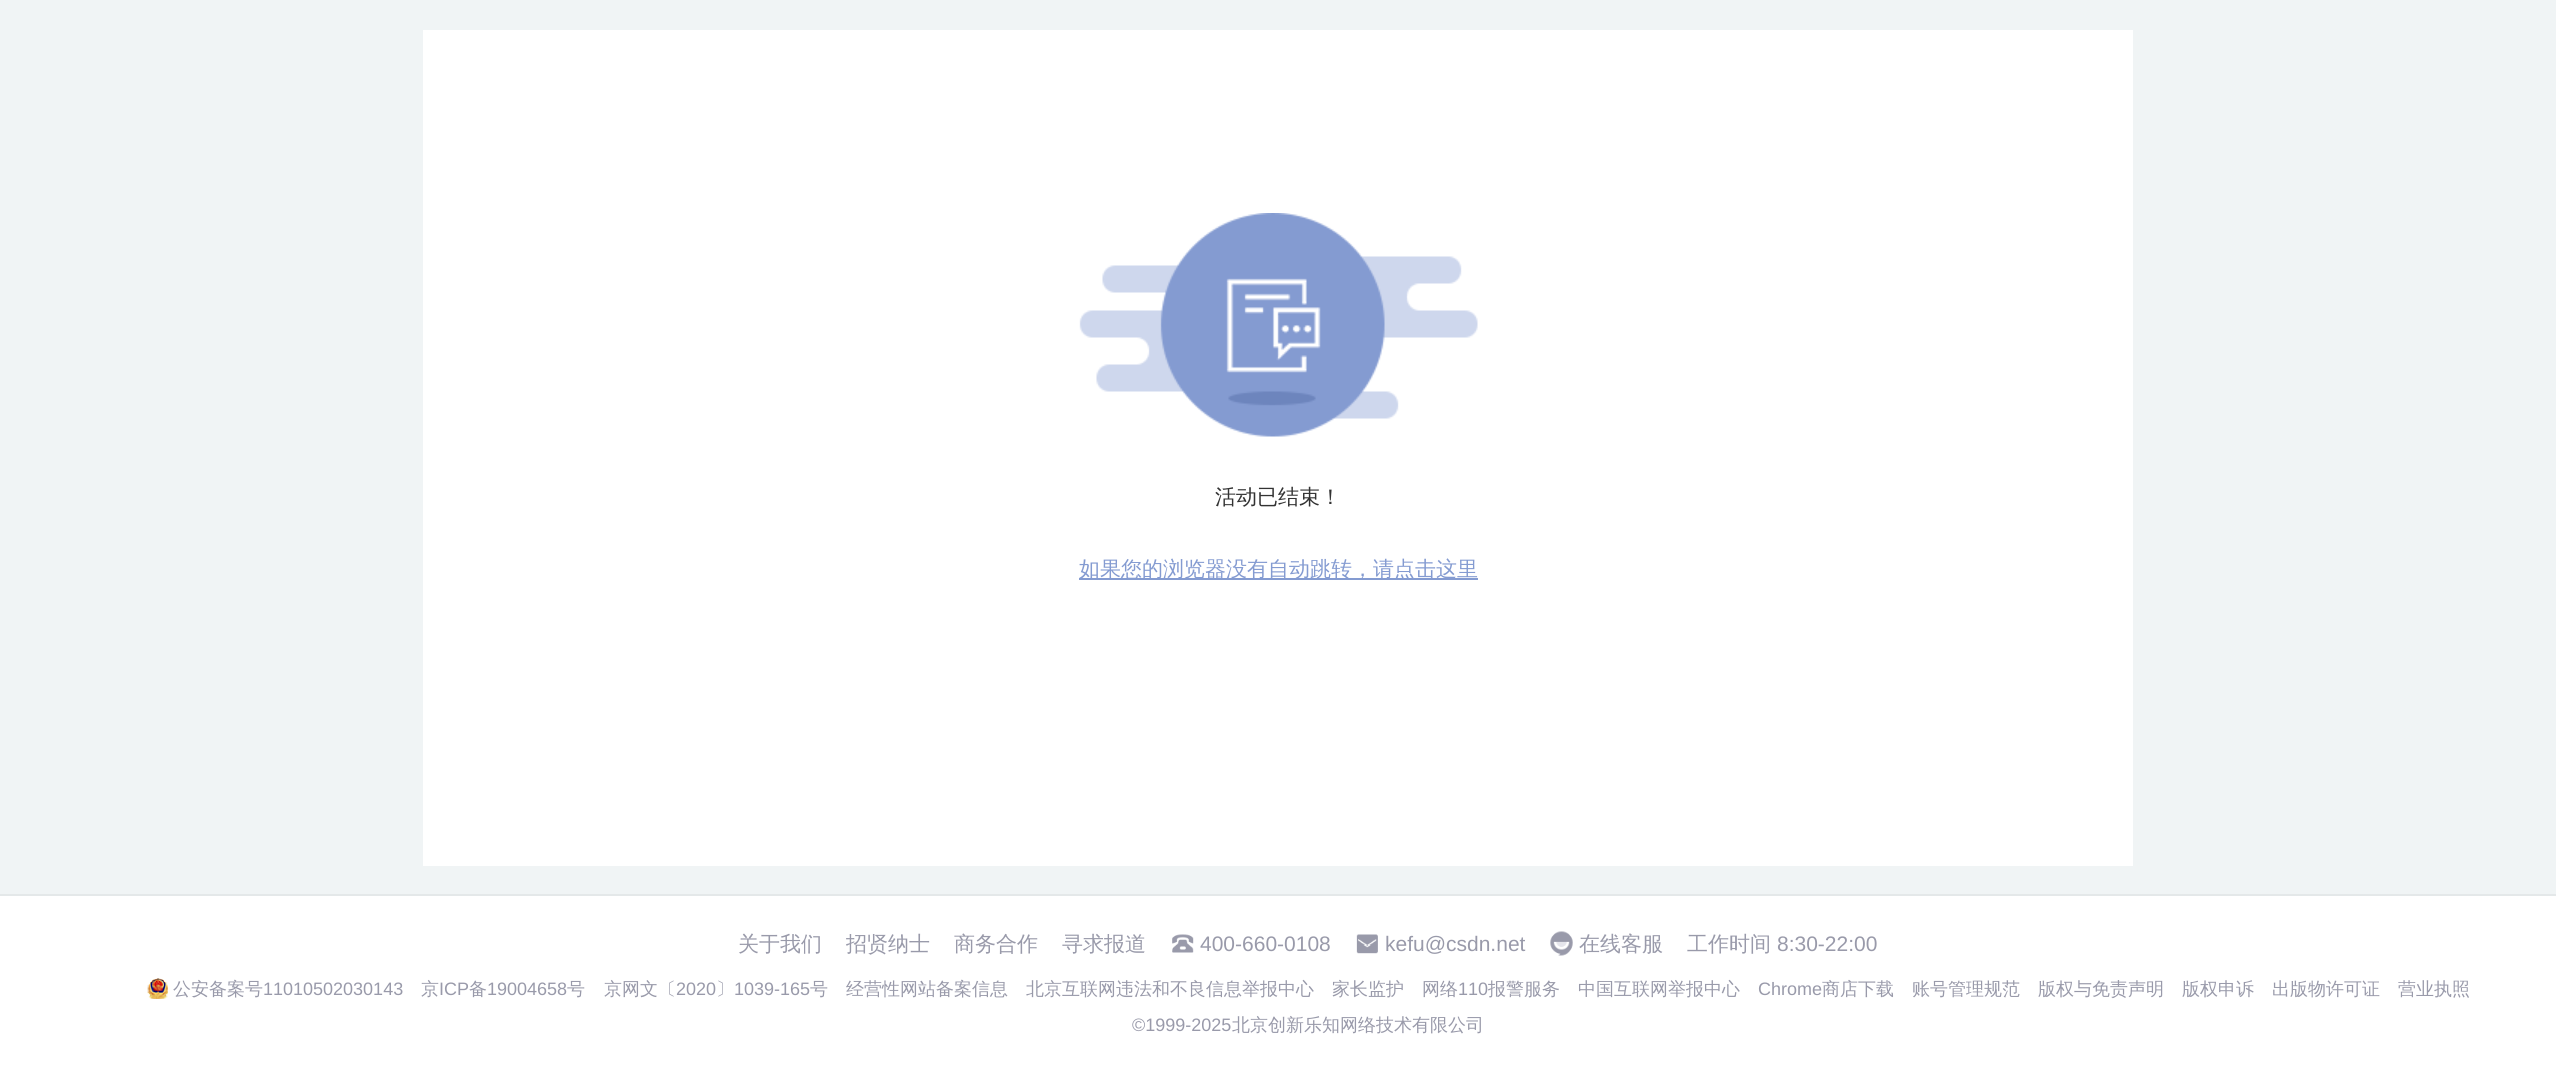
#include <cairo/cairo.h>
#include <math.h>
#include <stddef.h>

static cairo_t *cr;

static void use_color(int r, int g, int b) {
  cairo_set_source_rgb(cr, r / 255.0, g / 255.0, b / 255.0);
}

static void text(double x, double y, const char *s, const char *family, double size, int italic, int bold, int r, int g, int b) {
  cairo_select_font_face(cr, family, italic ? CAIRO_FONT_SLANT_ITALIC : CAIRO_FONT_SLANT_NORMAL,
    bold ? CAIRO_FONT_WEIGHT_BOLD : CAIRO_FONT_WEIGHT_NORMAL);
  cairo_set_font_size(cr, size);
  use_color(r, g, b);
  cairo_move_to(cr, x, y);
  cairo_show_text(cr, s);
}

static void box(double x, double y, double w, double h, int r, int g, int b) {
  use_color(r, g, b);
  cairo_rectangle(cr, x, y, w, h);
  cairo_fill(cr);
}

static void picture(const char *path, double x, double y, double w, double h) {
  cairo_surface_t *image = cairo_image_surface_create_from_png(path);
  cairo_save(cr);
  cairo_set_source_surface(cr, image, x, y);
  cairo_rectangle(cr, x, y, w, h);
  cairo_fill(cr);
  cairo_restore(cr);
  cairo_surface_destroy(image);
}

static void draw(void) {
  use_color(255, 255, 255);
  cairo_paint(cr);
  box(0, 0, 2556, 894, 240, 244, 245);
  box(423, 30, 1710, 836, 255, 255, 255);
  picture("img_01.png", 1079, 213, 399, 224);
  box(1079, 578, 399, 2, 132, 155, 209);
  box(0, 894, 2556, 2, 228, 232, 233);
  picture("img_02.png", 1172, 934, 22, 19);
  picture("img_03.png", 1356, 934, 22, 20);
  picture("img_04.png", 1550, 931, 23, 25);
  picture("img_05.png", 147, 978, 21, 21);
  text(1215, 504, "活动已结束！", "WenQuanYi Zen Hei Medium", 21, 0, 0, 51, 51, 51);
  text(1079, 576, "如果您的浏览器没有自动跳转，请点击这里", "WenQuanYi Zen Hei Medium", 21, 0, 0, 132, 155, 209);
  text(738, 951, "关于我们", "WenQuanYi Zen Hei Medium", 21, 0, 0, 153, 154, 170);
  text(846, 951, "招贤纳士", "WenQuanYi Zen Hei Medium", 21, 0, 0, 153, 154, 170);
  text(954, 951, "商务合作", "WenQuanYi Zen Hei Medium", 21, 0, 0, 153, 154, 170);
  text(1062, 951, "寻求报道", "WenQuanYi Zen Hei Medium", 21, 0, 0, 153, 154, 170);
  text(1200, 951, "400-660-0108", "Liberation Sans", 21, 0, 0, 153, 154, 170);
  text(1385, 951, "kefu@csdn.net", "Liberation Sans", 21, 0, 0, 153, 154, 170);
  text(1579, 951, "在线客服", "WenQuanYi Zen Hei Medium", 21, 0, 0, 153, 154, 170);
  text(1687, 951, "工作时间", "WenQuanYi Zen Hei Medium", 21, 0, 0, 153, 154, 170);
  text(1777, 951, "8:30-22:00", "Liberation Sans", 21, 0, 0, 153, 154, 170);
  text(173, 995, "公安备案号", "WenQuanYi Zen Hei Medium", 18, 0, 0, 153, 154, 170);
  text(263, 995, "11010502030143", "Liberation Sans", 18, 0, 0, 153, 154, 170);
  text(421, 995, "京", "WenQuanYi Zen Hei Medium", 18, 0, 0, 153, 154, 170);
  text(439, 995, "ICP", "Liberation Sans", 18, 0, 0, 153, 154, 170);
  text(469, 995, "备", "WenQuanYi Zen Hei Medium", 18, 0, 0, 153, 154, 170);
  text(487, 995, "19004658", "Liberation Sans", 18, 0, 0, 153, 154, 170);
  text(567, 995, "号", "WenQuanYi Zen Hei Medium", 18, 0, 0, 153, 154, 170);
  text(604, 995, "京网文〔", "WenQuanYi Zen Hei Medium", 18, 0, 0, 153, 154, 170);
  text(676, 995, "2020", "Liberation Sans", 18, 0, 0, 153, 154, 170);
  text(716, 995, "〕", "WenQuanYi Zen Hei Medium", 18, 0, 0, 153, 154, 170);
  text(734, 995, "1039-165", "Liberation Sans", 18, 0, 0, 153, 154, 170);
  text(810, 995, "号", "WenQuanYi Zen Hei Medium", 18, 0, 0, 153, 154, 170);
  text(846, 995, "经营性网站备案信息", "WenQuanYi Zen Hei Medium", 18, 0, 0, 153, 154, 170);
  text(1026, 995, "北京互联网违法和不良信息举报中心", "WenQuanYi Zen Hei Medium", 18, 0, 0, 153, 154, 170);
  text(1332, 995, "家长监护", "WenQuanYi Zen Hei Medium", 18, 0, 0, 153, 154, 170);
  text(1422, 995, "网络", "WenQuanYi Zen Hei Medium", 18, 0, 0, 153, 154, 170);
  text(1458, 995, "110", "Liberation Sans", 18, 0, 0, 153, 154, 170);
  text(1488, 995, "报警服务", "WenQuanYi Zen Hei Medium", 18, 0, 0, 153, 154, 170);
  text(1578, 995, "中国互联网举报中心", "WenQuanYi Zen Hei Medium", 18, 0, 0, 153, 154, 170);
  text(1758, 995, "Chrome", "Liberation Sans", 18, 0, 0, 153, 154, 170);
  text(1822, 995, "商店下载", "WenQuanYi Zen Hei Medium", 18, 0, 0, 153, 154, 170);
  text(1912, 995, "账号管理规范", "WenQuanYi Zen Hei Medium", 18, 0, 0, 153, 154, 170);
  text(2038, 995, "版权与免责声明", "WenQuanYi Zen Hei Medium", 18, 0, 0, 153, 154, 170);
  text(2182, 995, "版权申诉", "WenQuanYi Zen Hei Medium", 18, 0, 0, 153, 154, 170);
  text(2272, 995, "出版物许可证", "WenQuanYi Zen Hei Medium", 18, 0, 0, 153, 154, 170);
  text(2398, 995, "营业执照", "WenQuanYi Zen Hei Medium", 18, 0, 0, 153, 154, 170);
  text(1132, 1031, "©1999-2025", "Liberation Sans", 18, 0, 0, 153, 154, 170);
  text(1232, 1031, "北京创新乐知网络技术有限公司", "WenQuanYi Zen Hei Medium", 18, 0, 0, 153, 154, 170);
}

int main(void) {
  cairo_surface_t *surface = cairo_image_surface_create(CAIRO_FORMAT_RGB24, 2556, 1076);
  cr = cairo_create(surface);
  cairo_font_options_t *options = cairo_font_options_create();
  cairo_font_options_set_hint_metrics(options, CAIRO_HINT_METRICS_OFF);
  cairo_font_options_set_hint_style(options, CAIRO_HINT_STYLE_NONE);
  cairo_set_font_options(cr, options);
  cairo_set_miter_limit(cr, 4);
  draw();
  cairo_surface_write_to_png(surface, "out.png");
  cairo_font_options_destroy(options);
  cairo_destroy(cr);
  cairo_surface_destroy(surface);
  return 0;
}
